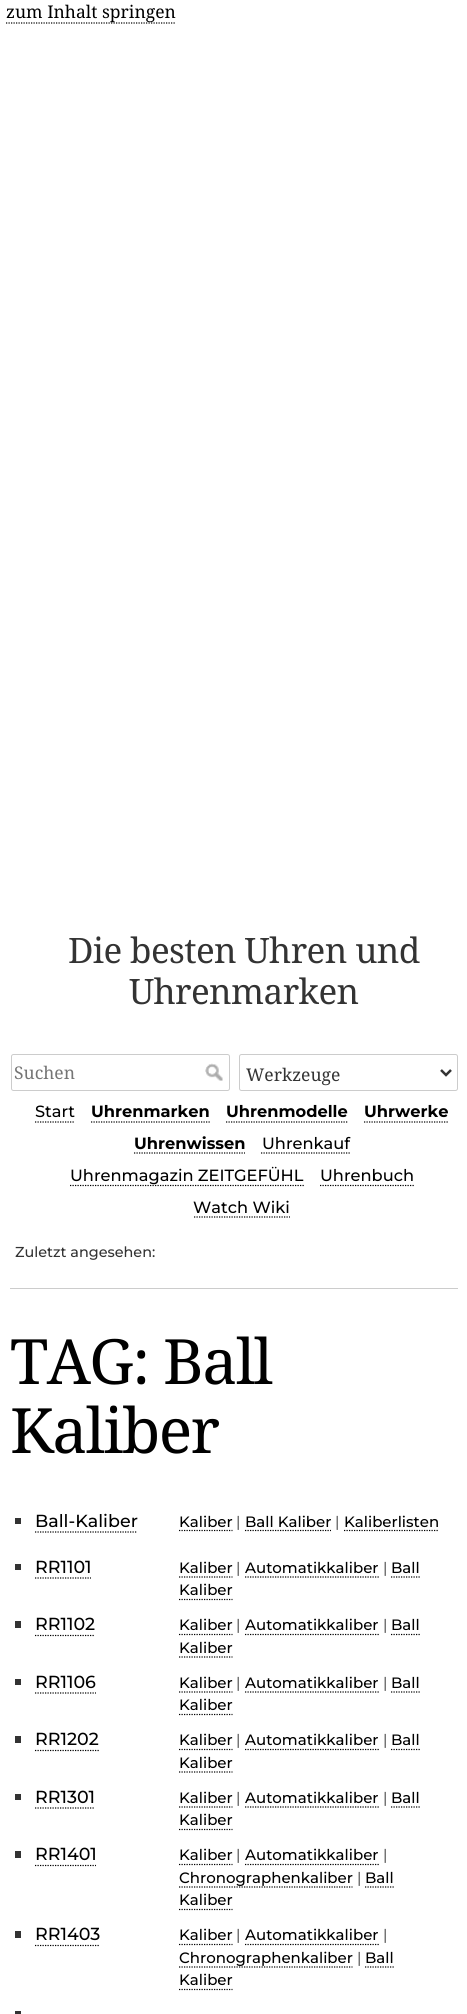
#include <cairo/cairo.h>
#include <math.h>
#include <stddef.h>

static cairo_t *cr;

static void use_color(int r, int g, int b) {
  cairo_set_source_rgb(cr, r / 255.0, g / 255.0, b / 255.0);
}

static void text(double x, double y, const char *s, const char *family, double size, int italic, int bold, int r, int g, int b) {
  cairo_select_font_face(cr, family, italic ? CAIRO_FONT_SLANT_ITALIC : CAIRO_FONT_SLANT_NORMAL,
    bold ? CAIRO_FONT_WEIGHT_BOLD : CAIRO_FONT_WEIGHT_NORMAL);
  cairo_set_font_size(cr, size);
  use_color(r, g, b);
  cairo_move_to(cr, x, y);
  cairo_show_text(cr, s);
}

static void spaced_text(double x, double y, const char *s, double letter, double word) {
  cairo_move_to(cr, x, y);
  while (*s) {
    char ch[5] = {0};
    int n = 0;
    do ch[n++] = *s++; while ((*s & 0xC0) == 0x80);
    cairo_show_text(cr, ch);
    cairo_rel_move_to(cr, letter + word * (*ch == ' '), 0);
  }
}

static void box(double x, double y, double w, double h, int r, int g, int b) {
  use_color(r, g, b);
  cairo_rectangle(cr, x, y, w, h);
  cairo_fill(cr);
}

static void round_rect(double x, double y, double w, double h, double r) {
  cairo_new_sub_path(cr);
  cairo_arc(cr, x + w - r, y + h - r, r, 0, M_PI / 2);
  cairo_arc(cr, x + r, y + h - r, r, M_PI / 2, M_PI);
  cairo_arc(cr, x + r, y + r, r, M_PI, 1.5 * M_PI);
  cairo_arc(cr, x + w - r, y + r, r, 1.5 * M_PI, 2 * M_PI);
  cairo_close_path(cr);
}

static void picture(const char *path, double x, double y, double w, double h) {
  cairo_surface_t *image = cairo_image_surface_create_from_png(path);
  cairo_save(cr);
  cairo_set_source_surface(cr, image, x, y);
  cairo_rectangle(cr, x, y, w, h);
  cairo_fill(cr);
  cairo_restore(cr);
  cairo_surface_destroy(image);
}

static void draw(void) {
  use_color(255, 255, 255);
  cairo_paint(cr);
  box(10, 1288, 448, 1, 204, 204, 204);
  cairo_new_path(cr);
  cairo_move_to(cr, 6, 23);
  cairo_line_to(cr, 176, 23);
  use_color(0, 0, 0);
  cairo_set_line_width(cr, 1.2);
  cairo_set_dash(cr, (double[]){1.25, 1.25}, 2, 0);
  cairo_stroke(cr);
  round_rect(11.5, 1054.5, 218, 36, 2);
  use_color(204, 204, 204);
  cairo_set_line_width(cr, 1);
  cairo_set_dash(cr, NULL, 0, 0);
  cairo_stroke(cr);
  picture("img_01.png", 205, 1063, 18, 18);
  round_rect(239.5, 1054.5, 218, 36, 2);
  cairo_stroke(cr);
  cairo_new_path(cr);
  cairo_move_to(cr, 441, 1070);
  cairo_line_to(cr, 446, 1075);
  cairo_line_to(cr, 451, 1070);
  use_color(51, 51, 51);
  cairo_set_line_width(cr, 2.5);
  cairo_stroke(cr);
  cairo_new_path(cr);
  cairo_move_to(cr, 35, 1122);
  cairo_line_to(cr, 75, 1122);
  use_color(0, 0, 0);
  cairo_set_line_width(cr, 1.2);
  cairo_set_dash(cr, (double[]){1.25, 1.25}, 2, 0);
  cairo_stroke(cr);
  cairo_new_path(cr);
  cairo_move_to(cr, 91, 1122);
  cairo_line_to(cr, 210, 1122);
  cairo_stroke(cr);
  cairo_new_path(cr);
  cairo_move_to(cr, 226, 1122);
  cairo_line_to(cr, 347.5, 1122);
  cairo_stroke(cr);
  cairo_new_path(cr);
  cairo_move_to(cr, 364, 1122);
  cairo_line_to(cr, 449, 1122);
  cairo_stroke(cr);
  cairo_new_path(cr);
  cairo_move_to(cr, 134, 1153);
  cairo_line_to(cr, 245, 1153);
  cairo_stroke(cr);
  cairo_new_path(cr);
  cairo_move_to(cr, 261, 1153);
  cairo_line_to(cr, 350, 1153);
  cairo_stroke(cr);
  cairo_new_path(cr);
  cairo_move_to(cr, 70, 1185.5);
  cairo_line_to(cr, 304, 1185.5);
  cairo_stroke(cr);
  cairo_new_path(cr);
  cairo_move_to(cr, 320, 1185.5);
  cairo_line_to(cr, 414, 1185.5);
  cairo_stroke(cr);
  cairo_new_path(cr);
  cairo_move_to(cr, 194, 1217);
  cairo_line_to(cr, 290, 1217);
  cairo_stroke(cr);
  box(15, 1518, 6, 6, 51, 51, 51);
  cairo_new_path(cr);
  cairo_move_to(cr, 35, 1532);
  cairo_line_to(cr, 137.5, 1532);
  use_color(0, 0, 0);
  cairo_stroke(cr);
  cairo_new_path(cr);
  cairo_move_to(cr, 179, 1530.5);
  cairo_line_to(cr, 232.5, 1530.5);
  cairo_stroke(cr);
  cairo_new_path(cr);
  cairo_move_to(cr, 245, 1530.5);
  cairo_line_to(cr, 331, 1530.5);
  cairo_stroke(cr);
  cairo_new_path(cr);
  cairo_move_to(cr, 344, 1530.5);
  cairo_line_to(cr, 439, 1530.5);
  cairo_stroke(cr);
  box(15, 1564, 6, 6, 51, 51, 51);
  cairo_new_path(cr);
  cairo_move_to(cr, 35, 1578);
  cairo_line_to(cr, 91, 1578);
  use_color(0, 0, 0);
  cairo_stroke(cr);
  cairo_new_path(cr);
  cairo_move_to(cr, 179, 1577);
  cairo_line_to(cr, 232.5, 1577);
  cairo_stroke(cr);
  cairo_new_path(cr);
  cairo_move_to(cr, 245, 1577);
  cairo_line_to(cr, 379, 1577);
  cairo_stroke(cr);
  cairo_new_path(cr);
  cairo_move_to(cr, 391, 1577);
  cairo_line_to(cr, 420, 1577);
  cairo_stroke(cr);
  cairo_new_path(cr);
  cairo_move_to(cr, 179, 1599.5);
  cairo_line_to(cr, 232.5, 1599.5);
  cairo_stroke(cr);
  box(15, 1621, 6, 7, 51, 51, 51);
  cairo_new_path(cr);
  cairo_move_to(cr, 35, 1635.5);
  cairo_line_to(cr, 95, 1635.5);
  use_color(0, 0, 0);
  cairo_stroke(cr);
  cairo_new_path(cr);
  cairo_move_to(cr, 179, 1634.5);
  cairo_line_to(cr, 232.5, 1634.5);
  cairo_stroke(cr);
  cairo_new_path(cr);
  cairo_move_to(cr, 245, 1634.5);
  cairo_line_to(cr, 379, 1634.5);
  cairo_stroke(cr);
  cairo_new_path(cr);
  cairo_move_to(cr, 391, 1634.5);
  cairo_line_to(cr, 420, 1634.5);
  cairo_stroke(cr);
  cairo_new_path(cr);
  cairo_move_to(cr, 179, 1657);
  cairo_line_to(cr, 232.5, 1657);
  cairo_stroke(cr);
  box(15, 1679, 6, 6, 51, 51, 51);
  cairo_new_path(cr);
  cairo_move_to(cr, 35, 1693);
  cairo_line_to(cr, 96, 1693);
  use_color(0, 0, 0);
  cairo_stroke(cr);
  cairo_new_path(cr);
  cairo_move_to(cr, 179, 1692);
  cairo_line_to(cr, 232.5, 1692);
  cairo_stroke(cr);
  cairo_new_path(cr);
  cairo_move_to(cr, 245, 1692);
  cairo_line_to(cr, 379, 1692);
  cairo_stroke(cr);
  cairo_new_path(cr);
  cairo_move_to(cr, 391, 1692);
  cairo_line_to(cr, 420, 1692);
  cairo_stroke(cr);
  cairo_new_path(cr);
  cairo_move_to(cr, 179, 1714.5);
  cairo_line_to(cr, 232.5, 1714.5);
  cairo_stroke(cr);
  box(15, 1736, 6, 7, 51, 51, 51);
  cairo_new_path(cr);
  cairo_move_to(cr, 35, 1750.5);
  cairo_line_to(cr, 99, 1750.5);
  use_color(0, 0, 0);
  cairo_stroke(cr);
  cairo_new_path(cr);
  cairo_move_to(cr, 179, 1749.5);
  cairo_line_to(cr, 232.5, 1749.5);
  cairo_stroke(cr);
  cairo_new_path(cr);
  cairo_move_to(cr, 245, 1749.5);
  cairo_line_to(cr, 379, 1749.5);
  cairo_stroke(cr);
  cairo_new_path(cr);
  cairo_move_to(cr, 391, 1749.5);
  cairo_line_to(cr, 420, 1749.5);
  cairo_stroke(cr);
  cairo_new_path(cr);
  cairo_move_to(cr, 179, 1772);
  cairo_line_to(cr, 232.5, 1772);
  cairo_stroke(cr);
  box(15, 1794, 6, 6, 51, 51, 51);
  cairo_new_path(cr);
  cairo_move_to(cr, 35, 1808);
  cairo_line_to(cr, 95, 1808);
  use_color(0, 0, 0);
  cairo_stroke(cr);
  cairo_new_path(cr);
  cairo_move_to(cr, 179, 1807);
  cairo_line_to(cr, 232.5, 1807);
  cairo_stroke(cr);
  cairo_new_path(cr);
  cairo_move_to(cr, 245, 1807);
  cairo_line_to(cr, 379, 1807);
  cairo_stroke(cr);
  cairo_new_path(cr);
  cairo_move_to(cr, 391, 1807);
  cairo_line_to(cr, 420, 1807);
  cairo_stroke(cr);
  cairo_new_path(cr);
  cairo_move_to(cr, 179, 1829.5);
  cairo_line_to(cr, 232.5, 1829.5);
  cairo_stroke(cr);
  box(15, 1851, 6, 7, 51, 51, 51);
  cairo_new_path(cr);
  cairo_move_to(cr, 35, 1865.5);
  cairo_line_to(cr, 96, 1865.5);
  use_color(0, 0, 0);
  cairo_stroke(cr);
  cairo_new_path(cr);
  cairo_move_to(cr, 179, 1864.5);
  cairo_line_to(cr, 232.5, 1864.5);
  cairo_stroke(cr);
  cairo_new_path(cr);
  cairo_move_to(cr, 245, 1864.5);
  cairo_line_to(cr, 379, 1864.5);
  cairo_stroke(cr);
  cairo_new_path(cr);
  cairo_move_to(cr, 179, 1887);
  cairo_line_to(cr, 352.5, 1887);
  cairo_stroke(cr);
  cairo_new_path(cr);
  cairo_move_to(cr, 365, 1887);
  cairo_line_to(cr, 394, 1887);
  cairo_stroke(cr);
  cairo_new_path(cr);
  cairo_move_to(cr, 179, 1909.5);
  cairo_line_to(cr, 232.5, 1909.5);
  cairo_stroke(cr);
  box(15, 1931, 6, 7, 51, 51, 51);
  cairo_new_path(cr);
  cairo_move_to(cr, 35, 1945.5);
  cairo_line_to(cr, 100, 1945.5);
  use_color(0, 0, 0);
  cairo_stroke(cr);
  cairo_new_path(cr);
  cairo_move_to(cr, 179, 1944.5);
  cairo_line_to(cr, 232.5, 1944.5);
  cairo_stroke(cr);
  cairo_new_path(cr);
  cairo_move_to(cr, 245, 1944.5);
  cairo_line_to(cr, 379, 1944.5);
  cairo_stroke(cr);
  cairo_new_path(cr);
  cairo_move_to(cr, 179, 1967);
  cairo_line_to(cr, 352.5, 1967);
  cairo_stroke(cr);
  cairo_new_path(cr);
  cairo_move_to(cr, 365, 1967);
  cairo_line_to(cr, 394, 1967);
  cairo_stroke(cr);
  cairo_new_path(cr);
  cairo_move_to(cr, 179, 1989.5);
  cairo_line_to(cr, 232.5, 1989.5);
  cairo_stroke(cr);
  box(15, 2011, 6, 3, 51, 51, 51);
  text(6, 18, "zum Inhalt springen", "Noto Serif", 17.5, 0, 0, 0, 0, 0);
  cairo_set_font_size(cr, 35);
  use_color(51, 51, 51);
  spaced_text(68, 963, "Die besten Uhren und", -0.6, 0);
  spaced_text(129, 1004, "Uhrenmarken", -0.6, 0);
  text(14, 1079, "Suchen", "Noto Serif", 17.5, 0, 0, 117, 117, 117);
  text(246, 1081, "Werkzeuge", "Noto Serif", 17.5, 0, 0, 51, 51, 51);
  text(35, 1117, "Start", "Montserrat Thin", 16.25, 0, 0, 0, 0, 0);
  text(91, 1117, "Uhrenmarken", "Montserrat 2 Thin", 16.25, 0, 0, 0, 0, 0);
  text(226, 1117, "Uhrenmodelle", "Montserrat 2 Thin", 16.25, 0, 0, 0, 0, 0);
  text(364, 1117, "Uhrwerke", "Montserrat 2 Thin", 16.25, 0, 0, 0, 0, 0);
  text(134, 1149, "Uhrenwissen", "Montserrat 2 Thin", 16.25, 0, 0, 0, 0, 0);
  text(262, 1149, "Uhrenkauf", "Montserrat Thin", 16.25, 0, 0, 0, 0, 0);
  text(70, 1181, "Uhrenmagazin ZEITGEFÜHL", "Montserrat Thin", 16.25, 0, 0, 0, 0, 0);
  text(320, 1181, "Uhrenbuch", "Montserrat Thin", 16.25, 0, 0, 0, 0, 0);
  text(193, 1213, "Watch Wiki", "Montserrat Thin", 16.25, 0, 0, 0, 0, 0);
  text(15, 1257, "Zuletzt angesehen:", "Montserrat Thin", 14.4, 0, 0, 51, 51, 51);
  cairo_select_font_face(cr, "Noto Serif", CAIRO_FONT_SLANT_NORMAL, CAIRO_FONT_WEIGHT_NORMAL);
  cairo_set_font_size(cr, 62.5);
  use_color(0, 0, 0);
  spaced_text(10, 1384, "TAG: Ball", -1.6, 0);
  spaced_text(10, 1453, "Kaliber", -1.6, 0);
  text(35, 1527, "Ball-Kaliber", "Montserrat Thin", 17.5, 0, 0, 0, 0, 0);
  text(179, 1527, "Kaliber", "Montserrat Thin", 15, 0, 0, 0, 0, 0);
  text(236, 1527, "|", "Montserrat Thin", 15, 0, 0, 102, 102, 102);
  text(245, 1527, "Ball Kaliber", "Montserrat Thin", 15, 0, 0, 0, 0, 0);
  text(335, 1527, "|", "Montserrat Thin", 15, 0, 0, 102, 102, 102);
  text(344, 1527, "Kaliberlisten", "Montserrat Thin", 15, 0, 0, 0, 0, 0);
  text(35, 1573, "RR1101", "Montserrat Thin", 17.5, 0, 0, 0, 0, 0);
  text(179, 1573, "Kaliber", "Montserrat Thin", 15, 0, 0, 0, 0, 0);
  text(236, 1573, "|", "Montserrat Thin", 15, 0, 0, 102, 102, 102);
  text(245, 1573, "Automatikkaliber", "Montserrat Thin", 15, 0, 0, 0, 0, 0);
  text(383, 1573, "|", "Montserrat Thin", 15, 0, 0, 102, 102, 102);
  text(391, 1573, "Ball", "Montserrat Thin", 15, 0, 0, 0, 0, 0);
  text(179, 1595, "Kaliber", "Montserrat Thin", 15, 0, 0, 0, 0, 0);
  text(35, 1630, "RR1102", "Montserrat Thin", 17.5, 0, 0, 0, 0, 0);
  text(179, 1630, "Kaliber", "Montserrat Thin", 15, 0, 0, 0, 0, 0);
  text(236, 1630, "|", "Montserrat Thin", 15, 0, 0, 102, 102, 102);
  text(245, 1630, "Automatikkaliber", "Montserrat Thin", 15, 0, 0, 0, 0, 0);
  text(383, 1630, "|", "Montserrat Thin", 15, 0, 0, 102, 102, 102);
  text(391, 1630, "Ball", "Montserrat Thin", 15, 0, 0, 0, 0, 0);
  text(179, 1653, "Kaliber", "Montserrat Thin", 15, 0, 0, 0, 0, 0);
  text(35, 1688, "RR1106", "Montserrat Thin", 17.5, 0, 0, 0, 0, 0);
  text(179, 1688, "Kaliber", "Montserrat Thin", 15, 0, 0, 0, 0, 0);
  text(236, 1688, "|", "Montserrat Thin", 15, 0, 0, 102, 102, 102);
  text(245, 1688, "Automatikkaliber", "Montserrat Thin", 15, 0, 0, 0, 0, 0);
  text(383, 1688, "|", "Montserrat Thin", 15, 0, 0, 102, 102, 102);
  text(391, 1688, "Ball", "Montserrat Thin", 15, 0, 0, 0, 0, 0);
  text(179, 1710, "Kaliber", "Montserrat Thin", 15, 0, 0, 0, 0, 0);
  text(35, 1745, "RR1202", "Montserrat Thin", 17.5, 0, 0, 0, 0, 0);
  text(179, 1745, "Kaliber", "Montserrat Thin", 15, 0, 0, 0, 0, 0);
  text(236, 1745, "|", "Montserrat Thin", 15, 0, 0, 102, 102, 102);
  text(245, 1745, "Automatikkaliber", "Montserrat Thin", 15, 0, 0, 0, 0, 0);
  text(383, 1745, "|", "Montserrat Thin", 15, 0, 0, 102, 102, 102);
  text(391, 1745, "Ball", "Montserrat Thin", 15, 0, 0, 0, 0, 0);
  text(179, 1768, "Kaliber", "Montserrat Thin", 15, 0, 0, 0, 0, 0);
  text(35, 1803, "RR1301", "Montserrat Thin", 17.5, 0, 0, 0, 0, 0);
  text(179, 1803, "Kaliber", "Montserrat Thin", 15, 0, 0, 0, 0, 0);
  text(236, 1803, "|", "Montserrat Thin", 15, 0, 0, 102, 102, 102);
  text(245, 1803, "Automatikkaliber", "Montserrat Thin", 15, 0, 0, 0, 0, 0);
  text(383, 1803, "|", "Montserrat Thin", 15, 0, 0, 102, 102, 102);
  text(391, 1803, "Ball", "Montserrat Thin", 15, 0, 0, 0, 0, 0);
  text(179, 1825, "Kaliber", "Montserrat Thin", 15, 0, 0, 0, 0, 0);
  text(35, 1860, "RR1401", "Montserrat Thin", 17.5, 0, 0, 0, 0, 0);
  text(179, 1860, "Kaliber", "Montserrat Thin", 15, 0, 0, 0, 0, 0);
  text(236, 1860, "|", "Montserrat Thin", 15, 0, 0, 102, 102, 102);
  text(245, 1860, "Automatikkaliber", "Montserrat Thin", 15, 0, 0, 0, 0, 0);
  text(383, 1860, "|", "Montserrat Thin", 15, 0, 0, 102, 102, 102);
  text(179, 1883, "Chronographenkaliber", "Montserrat Thin", 15, 0, 0, 0, 0, 0);
  text(357, 1883, "|", "Montserrat Thin", 15, 0, 0, 102, 102, 102);
  text(365, 1883, "Ball", "Montserrat Thin", 15, 0, 0, 0, 0, 0);
  text(179, 1905, "Kaliber", "Montserrat Thin", 15, 0, 0, 0, 0, 0);
  text(35, 1940, "RR1403", "Montserrat Thin", 17.5, 0, 0, 0, 0, 0);
  text(179, 1940, "Kaliber", "Montserrat Thin", 15, 0, 0, 0, 0, 0);
  text(236, 1940, "|", "Montserrat Thin", 15, 0, 0, 102, 102, 102);
  text(245, 1940, "Automatikkaliber", "Montserrat Thin", 15, 0, 0, 0, 0, 0);
  text(383, 1940, "|", "Montserrat Thin", 15, 0, 0, 102, 102, 102);
  text(179, 1963, "Chronographenkaliber", "Montserrat Thin", 15, 0, 0, 0, 0, 0);
  text(357, 1963, "|", "Montserrat Thin", 15, 0, 0, 102, 102, 102);
  text(365, 1963, "Ball", "Montserrat Thin", 15, 0, 0, 0, 0, 0);
  text(179, 1985, "Kaliber", "Montserrat Thin", 15, 0, 0, 0, 0, 0);
}

int main(void) {
  cairo_surface_t *surface = cairo_image_surface_create(CAIRO_FORMAT_RGB24, 467, 2014);
  cr = cairo_create(surface);
  cairo_font_options_t *options = cairo_font_options_create();
  cairo_font_options_set_hint_metrics(options, CAIRO_HINT_METRICS_OFF);
  cairo_font_options_set_hint_style(options, CAIRO_HINT_STYLE_NONE);
  cairo_set_font_options(cr, options);
  cairo_set_miter_limit(cr, 4);
  draw();
  cairo_surface_write_to_png(surface, "out.png");
  cairo_font_options_destroy(options);
  cairo_destroy(cr);
  cairo_surface_destroy(surface);
  return 0;
}
